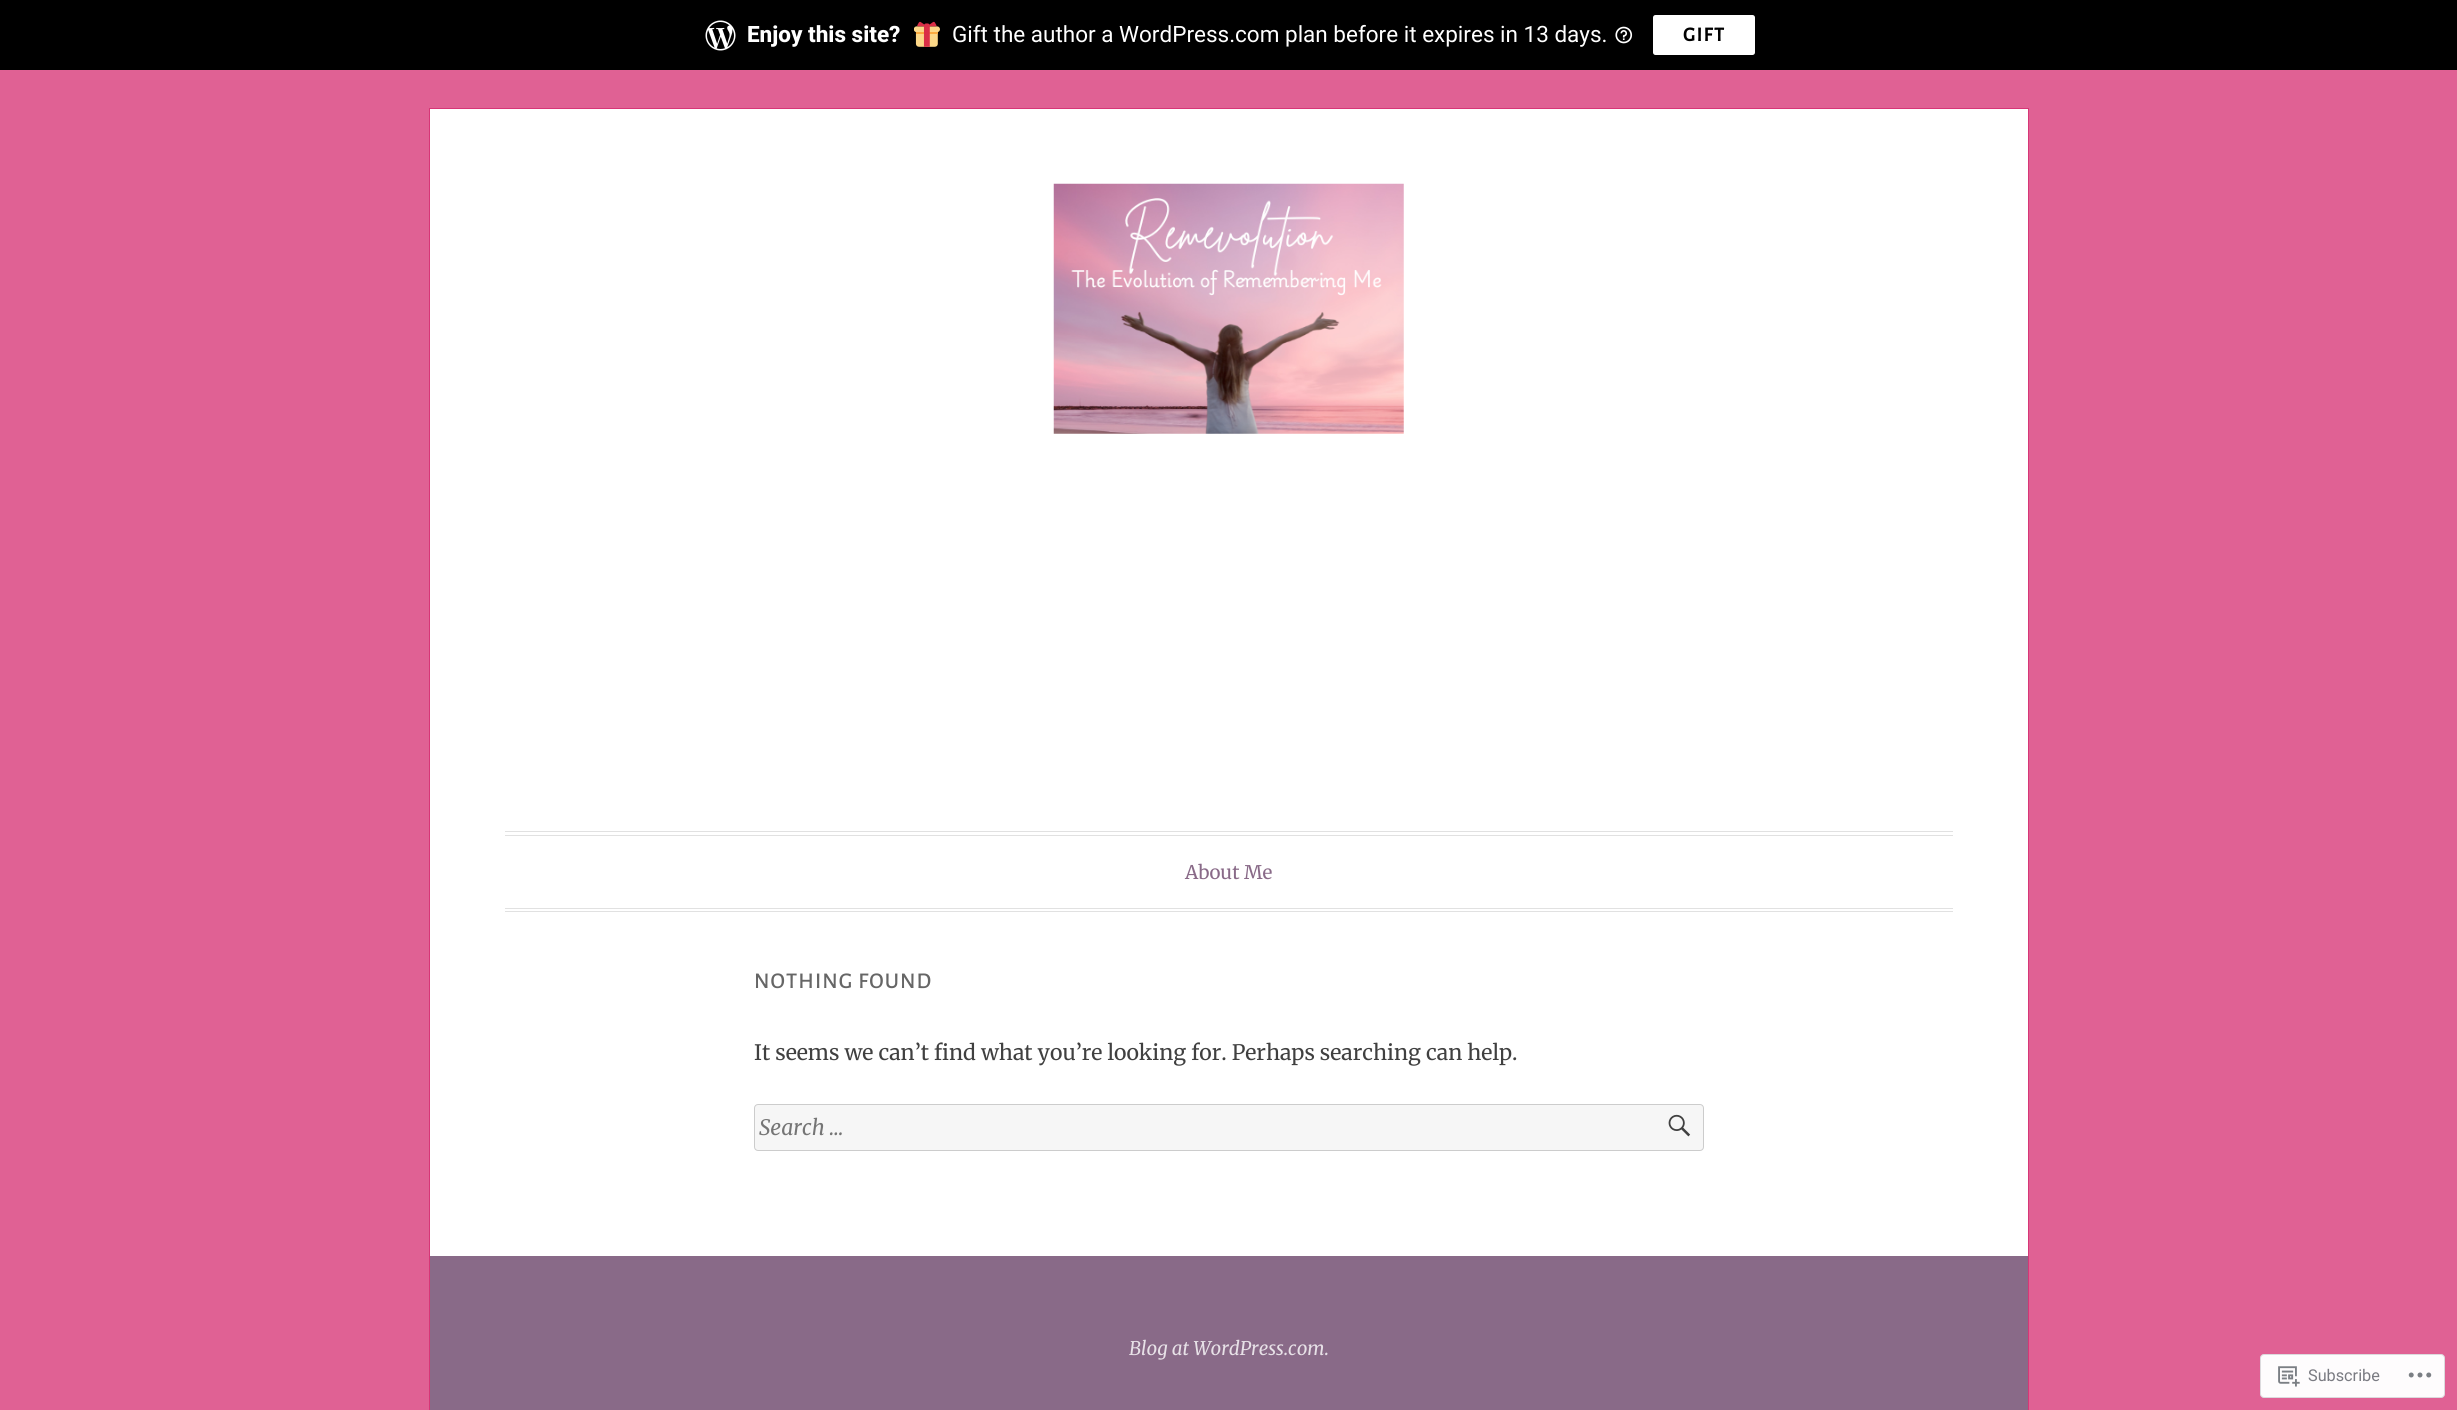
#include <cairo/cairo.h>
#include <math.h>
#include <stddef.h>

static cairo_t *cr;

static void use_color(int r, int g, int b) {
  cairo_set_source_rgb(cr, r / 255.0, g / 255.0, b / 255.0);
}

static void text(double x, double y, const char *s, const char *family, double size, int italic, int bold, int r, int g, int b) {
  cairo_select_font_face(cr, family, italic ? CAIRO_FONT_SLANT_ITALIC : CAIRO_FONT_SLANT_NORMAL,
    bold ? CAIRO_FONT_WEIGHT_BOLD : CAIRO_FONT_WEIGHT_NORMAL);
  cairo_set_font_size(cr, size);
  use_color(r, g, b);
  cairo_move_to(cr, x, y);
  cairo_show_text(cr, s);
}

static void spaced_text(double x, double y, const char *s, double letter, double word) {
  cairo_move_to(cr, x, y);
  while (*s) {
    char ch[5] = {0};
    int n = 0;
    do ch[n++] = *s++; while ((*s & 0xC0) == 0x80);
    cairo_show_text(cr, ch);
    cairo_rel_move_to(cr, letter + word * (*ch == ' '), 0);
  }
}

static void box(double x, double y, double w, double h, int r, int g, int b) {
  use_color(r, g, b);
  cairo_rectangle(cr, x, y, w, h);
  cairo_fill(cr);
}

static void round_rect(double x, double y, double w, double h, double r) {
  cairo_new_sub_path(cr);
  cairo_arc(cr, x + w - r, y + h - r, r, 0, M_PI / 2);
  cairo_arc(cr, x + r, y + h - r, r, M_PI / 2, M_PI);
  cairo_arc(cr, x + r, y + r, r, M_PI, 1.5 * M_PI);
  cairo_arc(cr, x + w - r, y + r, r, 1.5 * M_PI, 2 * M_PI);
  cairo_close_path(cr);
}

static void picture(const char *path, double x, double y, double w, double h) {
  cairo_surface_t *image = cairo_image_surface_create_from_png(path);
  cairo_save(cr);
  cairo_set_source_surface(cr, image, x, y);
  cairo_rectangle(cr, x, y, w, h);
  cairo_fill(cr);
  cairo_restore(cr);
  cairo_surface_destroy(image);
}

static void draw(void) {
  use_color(224, 97, 148);
  cairo_paint(cr);
  box(0, 0, 2457, 70, 0, 0, 0);
  picture("img_01.png", 705, 20, 31, 31);
  picture("img_02.png", 914, 21, 26, 26);
  picture("img_03.png", 1615, 26, 18, 18);
  use_color(255, 255, 255);
  round_rect(1653, 15, 102, 40, 2.5);
  cairo_fill(cr);
  box(430, 109, 1598, 1147, 255, 255, 255);
  cairo_rectangle(cr, 429.5, 108.5, 1599, 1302);
  use_color(215, 54, 119);
  cairo_set_line_width(cr, 1);
  cairo_stroke(cr);
  picture("img_04.png", 1053, 183, 351, 251);
  box(505, 831, 1448, 1, 225, 225, 225);
  box(505, 835, 1448, 1, 225, 225, 225);
  box(505, 908, 1448, 1, 225, 225, 225);
  box(505, 911, 1448, 1, 225, 225, 225);
  use_color(246, 246, 246);
  round_rect(754.5, 1104.5, 949, 46, 3.5);
  cairo_fill_preserve(cr);
  use_color(204, 204, 204);
  cairo_stroke(cr);
  picture("img_05.png", 1668, 1114, 23, 23);
  box(430, 1256, 1598, 154, 137, 106, 136);
  use_color(254, 252, 253);
  round_rect(2260.5, 1354.5, 184, 43, 3.5);
  cairo_fill_preserve(cr);
  use_color(220, 218, 221);
  cairo_stroke(cr);
  picture("img_06.png", 2278, 1366, 22, 21);
  picture("img_07.png", 2408, 1372, 24, 6);
  text(747, 42, "Enjoy this site?", "Roboto ExtraBold", 22.5, 0, 0, 255, 255, 255);
  text(952, 42, "Gift the author a WordPress.com plan before it expires in 13 days.", "Roboto", 22.5, 0, 0, 255, 255, 255);
  cairo_select_font_face(cr, "Alegreya Sans", CAIRO_FONT_SLANT_NORMAL, CAIRO_FONT_WEIGHT_BOLD);
  cairo_set_font_size(cr, 20);
  use_color(0, 0, 0);
  spaced_text(1683, 41, "GIFT", 1.5, 0);
  text(1185, 879, "About Me", "Merriweather", 18.75, 0, 0, 137, 106, 136);
  cairo_select_font_face(cr, "Alegreya Sans Medium", CAIRO_FONT_SLANT_NORMAL, CAIRO_FONT_WEIGHT_NORMAL);
  cairo_set_font_size(cr, 22.5);
  use_color(102, 102, 102);
  spaced_text(754, 988, "NOTHING FOUND", 1.1, 0);
  text(754, 1060, "It seems we can’t find what you’re looking for. Perhaps searching can help.", "Merriweather", 21.25, 0, 0, 64, 64, 64);
  text(759, 1135, "Search …", "Merriweather", 21.25, 1, 0, 117, 117, 117);
  text(1129, 1355, "Blog at WordPress.com.", "Merriweather", 18.75, 1, 0, 231, 225, 231);
  text(2308, 1381, "Subscribe", "Roboto", 16.25, 0, 0, 122, 123, 130);
}

int main(void) {
  cairo_surface_t *surface = cairo_image_surface_create(CAIRO_FORMAT_RGB24, 2457, 1410);
  cr = cairo_create(surface);
  cairo_font_options_t *options = cairo_font_options_create();
  cairo_font_options_set_hint_metrics(options, CAIRO_HINT_METRICS_OFF);
  cairo_font_options_set_hint_style(options, CAIRO_HINT_STYLE_NONE);
  cairo_set_font_options(cr, options);
  cairo_set_miter_limit(cr, 4);
  draw();
  cairo_surface_write_to_png(surface, "out.png");
  cairo_font_options_destroy(options);
  cairo_destroy(cr);
  cairo_surface_destroy(surface);
  return 0;
}
